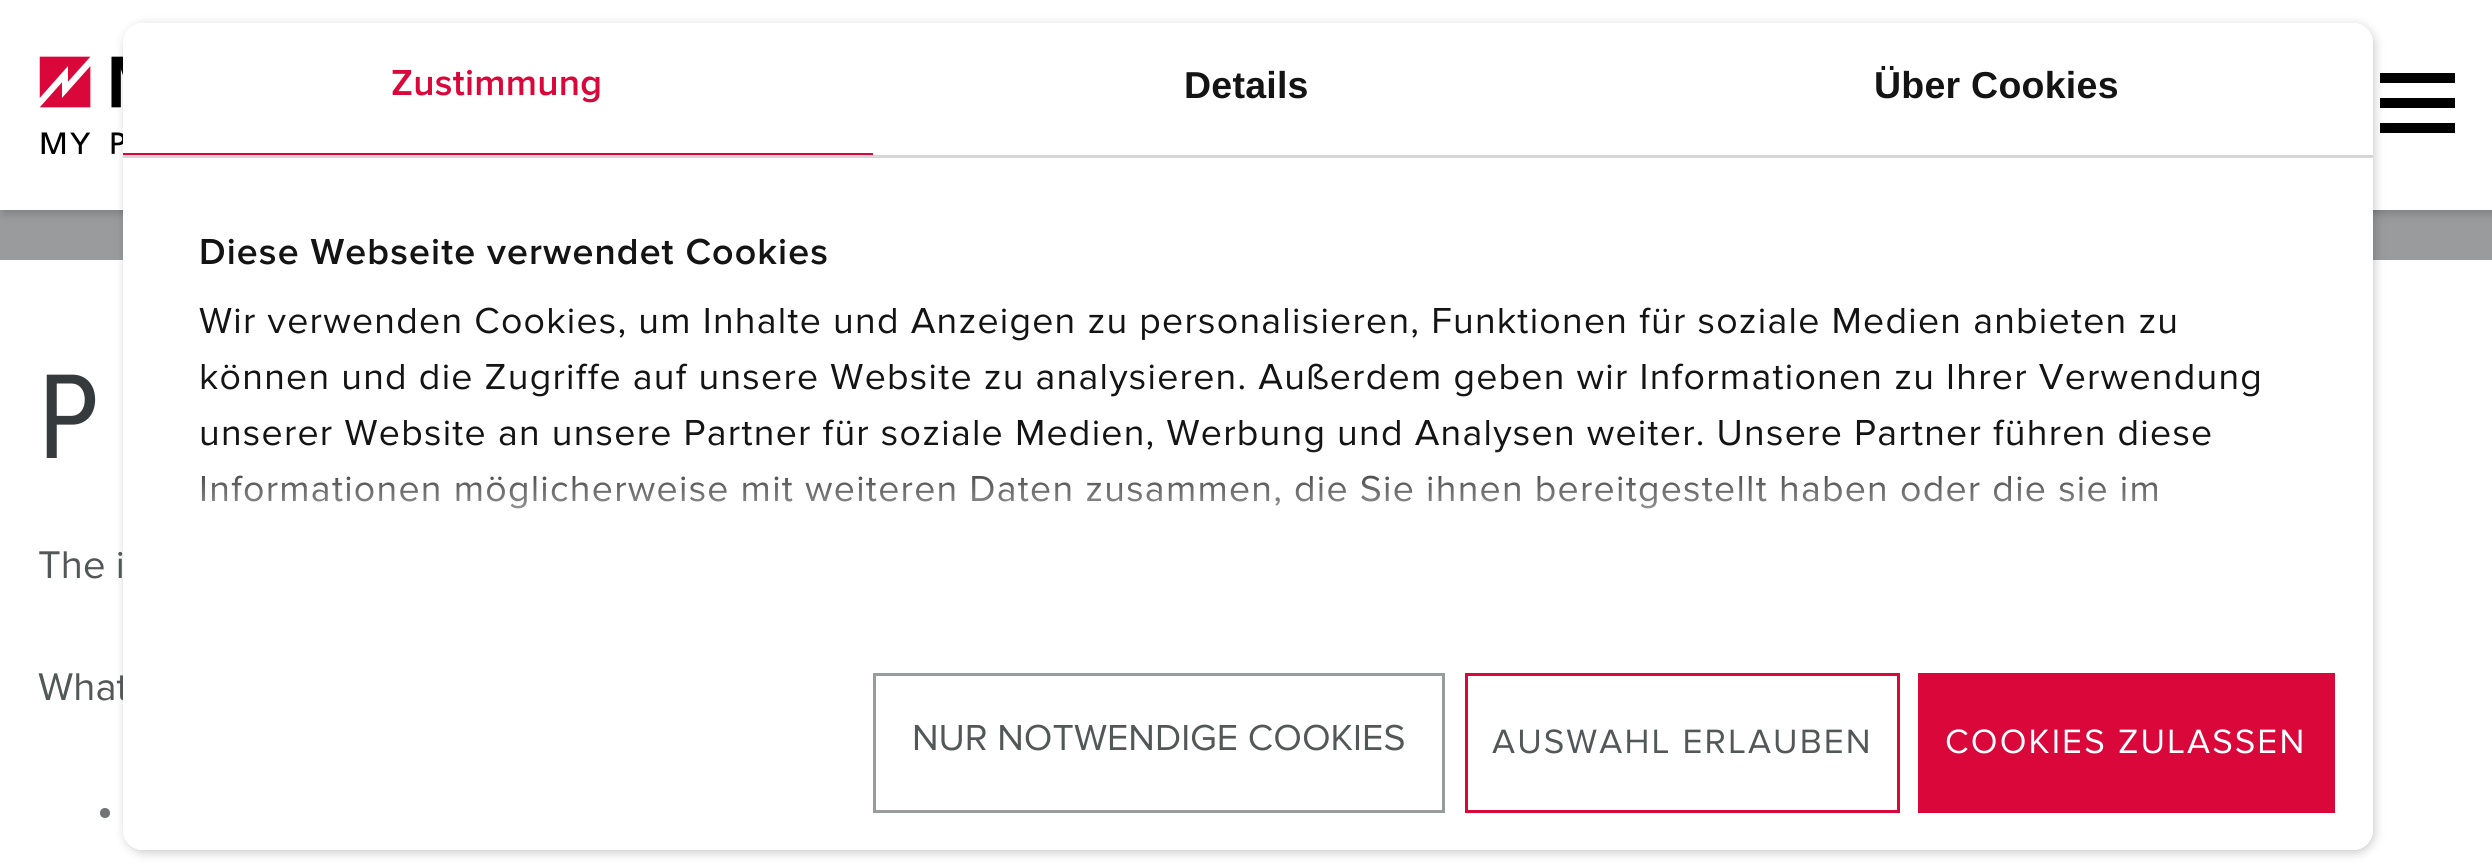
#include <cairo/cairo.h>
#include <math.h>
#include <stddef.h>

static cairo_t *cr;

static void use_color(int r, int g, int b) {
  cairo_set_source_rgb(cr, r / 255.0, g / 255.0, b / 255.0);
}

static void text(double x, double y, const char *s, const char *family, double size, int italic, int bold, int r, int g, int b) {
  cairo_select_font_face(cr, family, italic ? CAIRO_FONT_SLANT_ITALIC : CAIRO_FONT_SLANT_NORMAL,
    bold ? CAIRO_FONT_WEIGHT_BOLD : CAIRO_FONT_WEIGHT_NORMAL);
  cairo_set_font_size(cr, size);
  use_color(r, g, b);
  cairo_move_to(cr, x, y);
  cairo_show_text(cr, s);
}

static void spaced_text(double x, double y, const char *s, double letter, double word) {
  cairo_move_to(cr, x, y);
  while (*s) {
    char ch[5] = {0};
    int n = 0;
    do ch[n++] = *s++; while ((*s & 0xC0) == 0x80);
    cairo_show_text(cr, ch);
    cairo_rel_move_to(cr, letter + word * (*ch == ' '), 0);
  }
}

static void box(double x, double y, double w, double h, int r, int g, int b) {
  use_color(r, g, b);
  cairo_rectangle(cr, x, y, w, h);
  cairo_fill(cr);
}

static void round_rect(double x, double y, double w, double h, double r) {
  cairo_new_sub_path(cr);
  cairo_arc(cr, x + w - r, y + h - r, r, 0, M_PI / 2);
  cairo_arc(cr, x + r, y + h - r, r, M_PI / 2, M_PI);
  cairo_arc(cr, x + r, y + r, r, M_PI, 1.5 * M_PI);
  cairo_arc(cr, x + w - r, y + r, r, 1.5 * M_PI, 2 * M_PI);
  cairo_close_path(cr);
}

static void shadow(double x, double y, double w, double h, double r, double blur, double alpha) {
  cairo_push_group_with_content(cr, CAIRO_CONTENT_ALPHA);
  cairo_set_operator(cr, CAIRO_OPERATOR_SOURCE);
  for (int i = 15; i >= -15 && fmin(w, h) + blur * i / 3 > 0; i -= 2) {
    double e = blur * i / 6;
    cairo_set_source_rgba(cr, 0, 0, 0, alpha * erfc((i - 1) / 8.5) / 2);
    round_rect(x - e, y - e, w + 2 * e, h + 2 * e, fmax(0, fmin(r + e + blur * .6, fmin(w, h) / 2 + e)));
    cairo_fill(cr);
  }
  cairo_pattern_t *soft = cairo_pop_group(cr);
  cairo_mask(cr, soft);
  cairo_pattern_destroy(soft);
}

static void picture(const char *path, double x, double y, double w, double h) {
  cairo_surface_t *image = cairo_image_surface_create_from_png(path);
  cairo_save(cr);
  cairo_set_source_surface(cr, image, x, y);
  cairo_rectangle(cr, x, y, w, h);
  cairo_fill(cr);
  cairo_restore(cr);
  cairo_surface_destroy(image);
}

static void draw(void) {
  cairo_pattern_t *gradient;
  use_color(255, 255, 255);
  cairo_paint(cr);
  box(0, 210, 2492, 50, 153, 155, 156);
  use_color(0, 0, 0);
  shadow(3, 3, 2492, 210, 0, 5, 0.2);
  box(0, 0, 2492, 210, 255, 255, 255);
  picture("img_01.png", 39, 56, 84, 98);
  box(2380, 98, 75, 10, 0, 0, 0);
  box(2380, 73, 75, 10, 0, 0, 0);
  box(2380, 123, 75, 10, 0, 0, 0);
  use_color(112, 116, 117);
  cairo_arc(cr, 105, 813, 5, 0, 2 * M_PI);
  cairo_fill(cr);
  cairo_save(cr);
  cairo_set_fill_rule(cr, CAIRO_FILL_RULE_EVEN_ODD);
  cairo_new_path(cr);
  cairo_move_to(cr, 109, 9);
  cairo_line_to(cr, 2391, 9);
  cairo_line_to(cr, 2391, 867);
  cairo_line_to(cr, 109, 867);
  cairo_close_path(cr);
  cairo_move_to(cr, 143, 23);
  cairo_line_to(cr, 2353, 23);
  cairo_curve_to(cr, 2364, 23, 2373, 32, 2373, 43);
  cairo_line_to(cr, 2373, 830);
  cairo_curve_to(cr, 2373, 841, 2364, 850, 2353, 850);
  cairo_line_to(cr, 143, 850);
  cairo_curve_to(cr, 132, 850, 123, 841, 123, 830);
  cairo_line_to(cr, 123, 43);
  cairo_curve_to(cr, 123, 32, 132, 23, 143, 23);
  cairo_close_path(cr);
  cairo_clip(cr);
  use_color(0, 0, 0);
  shadow(125, 25, 2250, 828, 20, 5, 0.2);
  cairo_restore(cr);
  text(38, 458, "P", "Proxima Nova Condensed", 125, 0, 0, 53, 58, 60);
  text(38, 578, "The i", "Proxima Nova", 40, 0, 0, 82, 87, 88);
  text(38, 700, "What", "Proxima Nova", 40, 0, 0, 82, 87, 88);
  use_color(255, 255, 255);
  round_rect(123, 23, 2250, 827, 20);
  cairo_fill(cr);
  box(123, 155, 2250, 3, 214, 214, 214);
  box(123, 153, 750, 2, 217, 7, 58);
  cairo_select_font_face(cr, "Proxima Nova SemiBold", CAIRO_FONT_SLANT_NORMAL, CAIRO_FONT_WEIGHT_NORMAL);
  cairo_set_font_size(cr, 37.5);
  spaced_text(391, 95, "Zustimmung", 0.25, 0);
  cairo_select_font_face(cr, "Liberation Sans", CAIRO_FONT_SLANT_NORMAL, CAIRO_FONT_WEIGHT_BOLD);
  use_color(20, 20, 20);
  spaced_text(1184, 98, "Details", 0.25, 0);
  spaced_text(1874, 98, "Über Cookies", 0.25, 0);
  cairo_select_font_face(cr, "Proxima Nova SemiBold", CAIRO_FONT_SLANT_NORMAL, CAIRO_FONT_WEIGHT_NORMAL);
  spaced_text(199, 264, "Diese Webseite verwendet Cookies", 1.1, 0);
  cairo_select_font_face(cr, "Proxima Nova", CAIRO_FONT_SLANT_NORMAL, CAIRO_FONT_WEIGHT_NORMAL);
  spaced_text(199, 333, "Wir verwenden Cookies, um Inhalte und Anzeigen zu personalisieren, Funktionen für soziale Medien anbieten zu", 1.25, 0);
  spaced_text(199, 389, "können und die Zugriffe auf unsere Website zu analysieren. Außerdem geben wir Informationen zu Ihrer Verwendung", 1.25, 0);
  spaced_text(199, 445, "unserer Website an unsere Partner für soziale Medien, Werbung und Analysen weiter. Unsere Partner führen diese", 1.25, 0);
  spaced_text(199, 501, "Informationen möglicherweise mit weiteren Daten zusammen, die Sie ihnen bereitgestellt haben oder die sie im", 1.25, 0);
  gradient = cairo_pattern_create_linear(1220, 634, 1220, 446);
  cairo_pattern_add_color_stop_rgba(gradient, 0, 1, 1, 1, 1);
  cairo_pattern_add_color_stop_rgba(gradient, 0.5, 1, 1, 1, 0.8);
  cairo_pattern_add_color_stop_rgba(gradient, 1, 1, 1, 1, 0);
  cairo_set_source(cr, gradient);
  cairo_pattern_destroy(gradient);
  cairo_rectangle(cr, 201, 449, 1956, 60);
  cairo_fill(cr);
  cairo_rectangle(cr, 874.5, 674.5, 569, 137);
  use_color(153, 155, 156);
  cairo_set_line_width(cr, 3);
  cairo_stroke(cr);
  text(912, 750, "NUR NOTWENDIGE COOKIES", "Proxima Nova", 37.5, 0, 0, 82, 87, 88);
  cairo_rectangle(cr, 1466.5, 674.5, 432, 137);
  use_color(217, 7, 58);
  cairo_stroke(cr);
  cairo_set_font_size(cr, 35);
  use_color(82, 87, 88);
  spaced_text(1492, 753, "AUSWAHL ERLAUBEN", 2.1, 0);
  box(1918, 673, 417, 140, 217, 7, 58);
  use_color(255, 255, 255);
  spaced_text(1945, 753, "COOKIES ZULASSEN", 2.1, 0);
}

int main(void) {
  cairo_surface_t *surface = cairo_image_surface_create(CAIRO_FORMAT_RGB24, 2492, 867);
  cr = cairo_create(surface);
  cairo_font_options_t *options = cairo_font_options_create();
  cairo_font_options_set_hint_metrics(options, CAIRO_HINT_METRICS_OFF);
  cairo_font_options_set_hint_style(options, CAIRO_HINT_STYLE_NONE);
  cairo_set_font_options(cr, options);
  cairo_set_miter_limit(cr, 4);
  draw();
  cairo_surface_write_to_png(surface, "out.png");
  cairo_font_options_destroy(options);
  cairo_destroy(cr);
  cairo_surface_destroy(surface);
  return 0;
}
